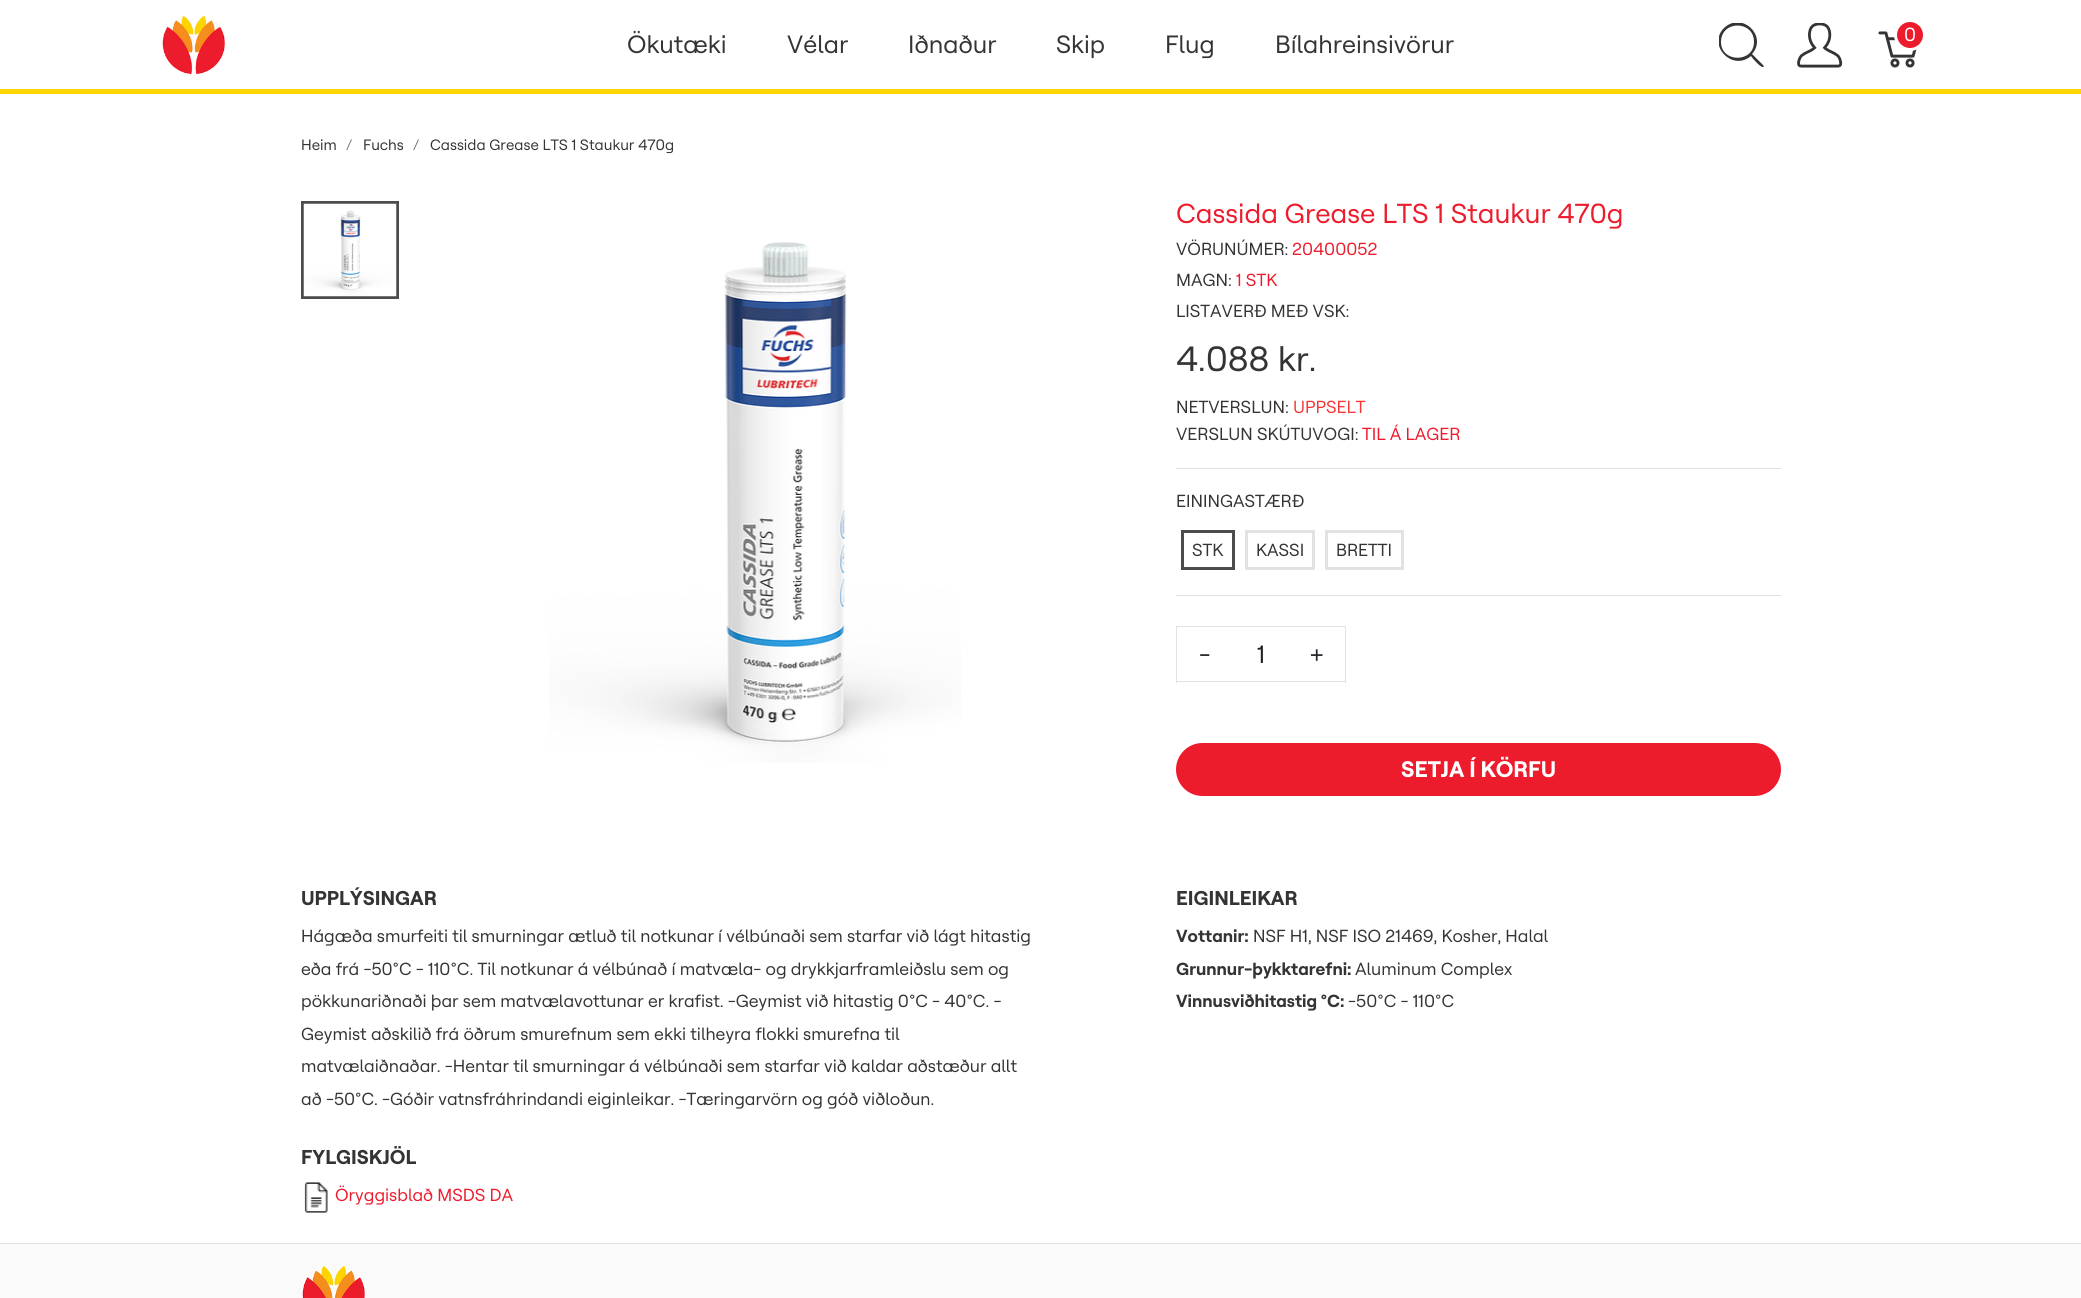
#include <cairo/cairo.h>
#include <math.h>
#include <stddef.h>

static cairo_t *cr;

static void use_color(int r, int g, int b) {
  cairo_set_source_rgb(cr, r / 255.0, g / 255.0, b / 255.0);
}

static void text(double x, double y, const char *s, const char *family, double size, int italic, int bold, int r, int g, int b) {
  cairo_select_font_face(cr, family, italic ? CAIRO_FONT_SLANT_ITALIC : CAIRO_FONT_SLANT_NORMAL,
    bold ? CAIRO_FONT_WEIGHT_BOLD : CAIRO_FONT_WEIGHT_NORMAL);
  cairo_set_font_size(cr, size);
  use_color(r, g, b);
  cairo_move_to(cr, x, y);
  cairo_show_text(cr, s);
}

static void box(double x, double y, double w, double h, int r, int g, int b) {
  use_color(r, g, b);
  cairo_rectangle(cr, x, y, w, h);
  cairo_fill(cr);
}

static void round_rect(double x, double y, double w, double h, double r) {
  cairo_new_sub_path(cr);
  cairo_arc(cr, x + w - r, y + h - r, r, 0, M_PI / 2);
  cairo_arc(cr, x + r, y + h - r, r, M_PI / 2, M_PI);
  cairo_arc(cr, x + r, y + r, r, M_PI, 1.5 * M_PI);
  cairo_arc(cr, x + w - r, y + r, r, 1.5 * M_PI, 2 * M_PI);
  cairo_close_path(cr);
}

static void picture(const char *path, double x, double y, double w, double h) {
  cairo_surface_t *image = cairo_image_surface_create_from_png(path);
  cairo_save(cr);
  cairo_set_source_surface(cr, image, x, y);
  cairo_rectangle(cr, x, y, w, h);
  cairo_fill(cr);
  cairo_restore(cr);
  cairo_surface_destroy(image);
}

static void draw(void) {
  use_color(255, 255, 255);
  cairo_paint(cr);
  box(0, 89, 2081, 5, 255, 213, 0);
  picture("img_01.png", 161, 15, 65, 60);
  cairo_save(cr);
  cairo_rectangle(cr, 1719, 23, 45, 45);
  cairo_clip(cr);
  use_color(52, 52, 52);
  cairo_new_path(cr);
  cairo_move_to(cr, 1763, 65);
  cairo_line_to(cr, 1752, 54);
  cairo_curve_to(cr, 1768, 36, 1742, 11, 1724, 28);
  cairo_curve_to(cr, 1707, 45, 1732, 72, 1751, 56);
  cairo_curve_to(cr, 1752, 58, 1761, 68, 1763, 67);
  cairo_curve_to(cr, 1764, 67, 1764, 66, 1763, 65);
  cairo_close_path(cr);
  cairo_move_to(cr, 1721, 42);
  cairo_curve_to(cr, 1721, 20, 1754, 20, 1754, 42);
  cairo_curve_to(cr, 1754, 63, 1721, 63, 1721, 42);
  cairo_close_path(cr);
  cairo_fill(cr);
  cairo_restore(cr);
  picture("img_02.png", 1797, 23, 46, 45);
  picture("img_03.png", 1878, 31, 39, 37);
  use_color(236, 28, 45);
  cairo_arc(cr, 1910, 35, 14.5, 0, 2 * M_PI);
  cairo_fill_preserve(cr);
  use_color(255, 255, 255);
  cairo_set_line_width(cr, 3);
  cairo_stroke(cr);
  cairo_rectangle(cr, 302.5, 202.5, 95, 95);
  use_color(76, 76, 76);
  cairo_stroke(cr);
  picture("img_04.png", 303, 203, 94, 94);
  picture("img_05.png", 549, 242, 412, 521);
  box(1176, 468, 605, 1, 226, 226, 226);
  cairo_rectangle(cr, 1182.5, 531.5, 51, 37);
  use_color(76, 76, 76);
  cairo_stroke(cr);
  cairo_rectangle(cr, 1246.5, 531.5, 67, 37);
  use_color(226, 226, 226);
  cairo_stroke(cr);
  cairo_rectangle(cr, 1326.5, 531.5, 76, 37);
  cairo_stroke(cr);
  box(1176, 595, 605, 1, 226, 226, 226);
  box(1176, 626, 57, 1, 226, 226, 226);
  box(1176, 681, 57, 1, 226, 226, 226);
  box(1176, 626, 1, 57, 226, 226, 226);
  box(1233, 626, 113, 1, 226, 226, 226);
  box(1345, 626, 1, 57, 226, 226, 226);
  box(1233, 681, 113, 1, 226, 226, 226);
  use_color(236, 28, 45);
  round_rect(1177.5, 744.5, 602, 50, 25);
  cairo_fill_preserve(cr);
  cairo_stroke(cr);
  picture("img_06.png", 304, 1182, 24, 31);
  box(0, 1244, 2081, 54, 250, 250, 250);
  box(0, 1243, 2081, 1, 226, 226, 226);
  picture("img_07.png", 302, 1264, 64, 34);
  text(627, 53, "Ökutæki", "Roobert", 25, 0, 0, 52, 52, 52);
  text(787, 53, "Vélar", "Roobert", 25, 0, 0, 52, 52, 52);
  text(908, 53, "Iðnaður", "Roobert", 25, 0, 0, 52, 52, 52);
  text(1056, 53, "Skip", "Roobert", 25, 0, 0, 52, 52, 52);
  text(1165, 53, "Flug", "Roobert", 25, 0, 0, 52, 52, 52);
  text(1275, 53, "Bílahreinsivörur", "Roobert", 25, 0, 0, 52, 52, 52);
  text(1904, 41, "0", "Roobert", 19, 0, 0, 255, 255, 255);
  text(301, 150, "Heim", "Roobert", 15, 0, 0, 52, 52, 52);
  text(346, 150, "/", "Roobert", 15, 0, 0, 108, 117, 125);
  text(363, 150, "Fuchs", "Roobert", 15, 0, 0, 52, 52, 52);
  text(413, 150, "/", "Roobert", 15, 0, 0, 108, 117, 125);
  text(430, 150, "Cassida Grease LTS 1 Staukur 470g", "Roobert", 15, 0, 0, 52, 52, 52);
  text(1176, 223, "Cassida Grease LTS 1 Staukur 470g", "Roobert", 27.5, 0, 0, 236, 28, 45);
  text(1176, 255, "VÖRUNÚMER:", "Roobert", 17.5, 0, 0, 52, 52, 52);
  text(1292, 255, "20400052", "Roobert", 17.5, 0, 0, 236, 28, 45);
  text(1176, 286, "MAGN:", "Roobert", 17.5, 0, 0, 52, 52, 52);
  text(1236, 286, "1 STK", "Roobert", 17.5, 0, 0, 236, 28, 45);
  text(1176, 317, "LISTAVERÐ MEÐ VSK:", "Roobert", 17.5, 0, 0, 52, 52, 52);
  text(1176, 371, "4.088 kr.", "Roobert", 35, 0, 0, 52, 52, 52);
  text(1176, 413, "NETVERSLUN:", "Roobert", 17.5, 0, 0, 52, 52, 52);
  text(1293, 413, "UPPSELT", "Roobert", 17.5, 0, 0, 245, 55, 55);
  text(1176, 440, "VERSLUN SKÚTUVOGI:", "Roobert", 17.5, 0, 0, 52, 52, 52);
  text(1362, 440, "TIL Á LAGER", "Roobert", 17.5, 0, 0, 236, 28, 45);
  text(1176, 507, "EININGASTÆRÐ", "Roobert", 17.5, 0, 0, 52, 52, 52);
  text(1192, 556, "STK", "Roobert", 17.5, 0, 0, 52, 52, 52);
  text(1256, 556, "KASSI", "Roobert", 17.5, 0, 0, 52, 52, 52);
  text(1336, 556, "BRETTI", "Roobert", 17.5, 0, 0, 52, 52, 52);
  text(1199, 663, "-", "Roobert", 25, 0, 0, 33, 37, 41);
  text(1257, 663, "1", "Roobert", 25, 0, 0, 33, 37, 41);
  text(1309, 663, "+", "Roobert", 25, 0, 0, 33, 37, 41);
  text(1401, 777, "SETJA Í KÖRFU", "Roobert", 22.5, 0, 1, 255, 255, 255);
  text(301, 905, "UPPLÝSINGAR", "Roobert", 20, 0, 1, 52, 52, 52);
  text(301, 942, "Hágæða smurfeiti til smurningar ætluð til notkunar í vélbúnaði sem starfar við lágt hitastig", "Roobert", 17.5, 0, 0, 52, 52, 52);
  text(301, 975, "eða frá -50°C - 110°C. Til notkunar á vélbúnað í matvæla- og drykkjarframleiðslu sem og", "Roobert", 17.5, 0, 0, 52, 52, 52);
  text(301, 1007, "pökkunariðnaði þar sem matvælavottunar er krafist. -Geymist við hitastig 0°C - 40°C. -", "Roobert", 17.5, 0, 0, 52, 52, 52);
  text(301, 1040, "Geymist aðskilið frá öðrum smurefnum sem ekki tilheyra flokki smurefna til", "Roobert", 17.5, 0, 0, 52, 52, 52);
  text(301, 1072, "matvælaiðnaðar. -Hentar til smurningar á vélbúnaði sem starfar við kaldar aðstæður allt", "Roobert", 17.5, 0, 0, 52, 52, 52);
  text(301, 1105, "að -50°C. -Góðir vatnsfráhrindandi eiginleikar. -Tæringarvörn og góð viðloðun.", "Roobert", 17.5, 0, 0, 52, 52, 52);
  text(1176, 905, "EIGINLEIKAR", "Roobert", 20, 0, 1, 52, 52, 52);
  text(1176, 942, "Vottanir:", "Roobert", 17.5, 0, 1, 52, 52, 52);
  text(1253, 942, "NSF H1, NSF ISO 21469, Kosher, Halal", "Roobert", 17.5, 0, 0, 52, 52, 52);
  text(1176, 975, "Grunnur-þykktarefni:", "Roobert", 17.5, 0, 1, 52, 52, 52);
  text(1355, 975, "Aluminum Complex", "Roobert", 17.5, 0, 0, 52, 52, 52);
  text(1176, 1007, "Vinnusviðhitastig °C:", "Roobert", 17.5, 0, 1, 52, 52, 52);
  text(1348, 1007, "-50°C - 110°C", "Roobert", 17.5, 0, 0, 52, 52, 52);
  text(301, 1164, "FYLGISKJÖL", "Roobert", 20, 0, 1, 52, 52, 52);
  text(335, 1201, "Öryggisblað MSDS DA", "Roobert", 17.5, 0, 0, 236, 28, 45);
}

int main(void) {
  cairo_surface_t *surface = cairo_image_surface_create(CAIRO_FORMAT_RGB24, 2081, 1298);
  cr = cairo_create(surface);
  cairo_font_options_t *options = cairo_font_options_create();
  cairo_font_options_set_hint_metrics(options, CAIRO_HINT_METRICS_OFF);
  cairo_font_options_set_hint_style(options, CAIRO_HINT_STYLE_NONE);
  cairo_set_font_options(cr, options);
  cairo_set_miter_limit(cr, 4);
  draw();
  cairo_surface_write_to_png(surface, "out.png");
  cairo_font_options_destroy(options);
  cairo_destroy(cr);
  cairo_surface_destroy(surface);
  return 0;
}
